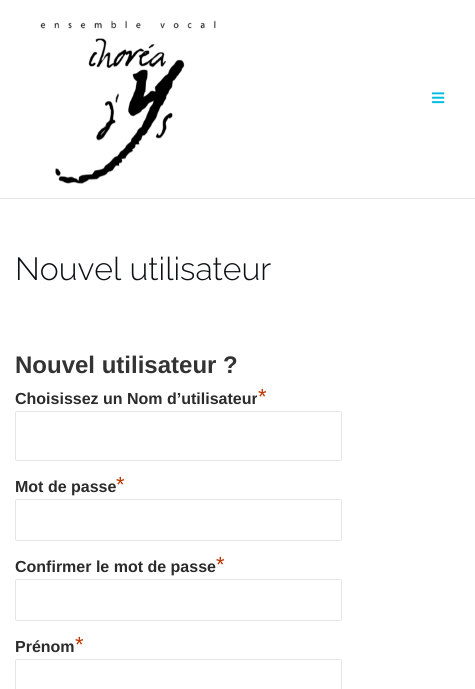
#include <cairo/cairo.h>
#include <math.h>
#include <stddef.h>

static cairo_t *cr;

static void use_color(int r, int g, int b) {
  cairo_set_source_rgb(cr, r / 255.0, g / 255.0, b / 255.0);
}

static void text(double x, double y, const char *s, const char *family, double size, int italic, int bold, int r, int g, int b) {
  cairo_select_font_face(cr, family, italic ? CAIRO_FONT_SLANT_ITALIC : CAIRO_FONT_SLANT_NORMAL,
    bold ? CAIRO_FONT_WEIGHT_BOLD : CAIRO_FONT_WEIGHT_NORMAL);
  cairo_set_font_size(cr, size);
  use_color(r, g, b);
  cairo_move_to(cr, x, y);
  cairo_show_text(cr, s);
}

static void box(double x, double y, double w, double h, int r, int g, int b) {
  use_color(r, g, b);
  cairo_rectangle(cr, x, y, w, h);
  cairo_fill(cr);
}

static void round_rect(double x, double y, double w, double h, double r) {
  cairo_new_sub_path(cr);
  cairo_arc(cr, x + w - r, y + h - r, r, 0, M_PI / 2);
  cairo_arc(cr, x + r, y + h - r, r, M_PI / 2, M_PI);
  cairo_arc(cr, x + r, y + r, r, M_PI, 1.5 * M_PI);
  cairo_arc(cr, x + w - r, y + r, r, 1.5 * M_PI, 2 * M_PI);
  cairo_close_path(cr);
}

static void picture(const char *path, double x, double y, double w, double h) {
  cairo_surface_t *image = cairo_image_surface_create_from_png(path);
  cairo_save(cr);
  cairo_set_source_surface(cr, image, x, y);
  cairo_rectangle(cr, x, y, w, h);
  cairo_fill(cr);
  cairo_restore(cr);
  cairo_surface_destroy(image);
}

static void draw(void) {
  use_color(255, 255, 255);
  cairo_paint(cr);
  box(0, 198, 475, 1, 230, 230, 230);
  picture("img_01.png", 40, 20, 176, 164);
  picture("img_02.png", 432, 92, 13, 12);
  round_rect(15.5, 411.5, 326, 49, 1.5);
  cairo_set_line_width(cr, 1);
  cairo_stroke(cr);
  round_rect(15.5, 499.5, 326, 41, 1.5);
  cairo_stroke(cr);
  round_rect(15.5, 579.5, 326, 41, 1.5);
  cairo_stroke(cr);
  round_rect(15.5, 659.5, 326, 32, 1.5);
  cairo_stroke(cr);
  text(15, 280, "Nouvel utilisateur", "Raleway Light", 32, 0, 0, 14, 16, 21);
  text(15, 373, "Nouvel utilisateur ?", "Liberation Sans", 24, 0, 1, 51, 51, 51);
  text(15, 404, "Choisissez un Nom d’utilisateur", "Liberation Sans", 16, 0, 1, 43, 43, 43);
  text(258, 404, "*", "Liberation Sans", 22, 0, 0, 189, 53, 0);
  text(15, 492, "Mot de passe", "Liberation Sans", 16, 0, 1, 43, 43, 43);
  text(116, 492, "*", "Liberation Sans", 22, 0, 0, 189, 53, 0);
  text(15, 572, "Confirmer le mot de passe", "Liberation Sans", 16, 0, 1, 43, 43, 43);
  text(216, 572, "*", "Liberation Sans", 22, 0, 0, 189, 53, 0);
  text(15, 652, "Prénom", "Liberation Sans", 16, 0, 1, 43, 43, 43);
  text(75, 652, "*", "Liberation Sans", 22, 0, 0, 189, 53, 0);
}

int main(void) {
  cairo_surface_t *surface = cairo_image_surface_create(CAIRO_FORMAT_RGB24, 475, 689);
  cr = cairo_create(surface);
  cairo_font_options_t *options = cairo_font_options_create();
  cairo_font_options_set_hint_metrics(options, CAIRO_HINT_METRICS_OFF);
  cairo_font_options_set_hint_style(options, CAIRO_HINT_STYLE_NONE);
  cairo_set_font_options(cr, options);
  cairo_set_miter_limit(cr, 4);
  draw();
  cairo_surface_write_to_png(surface, "out.png");
  cairo_font_options_destroy(options);
  cairo_destroy(cr);
  cairo_surface_destroy(surface);
  return 0;
}
